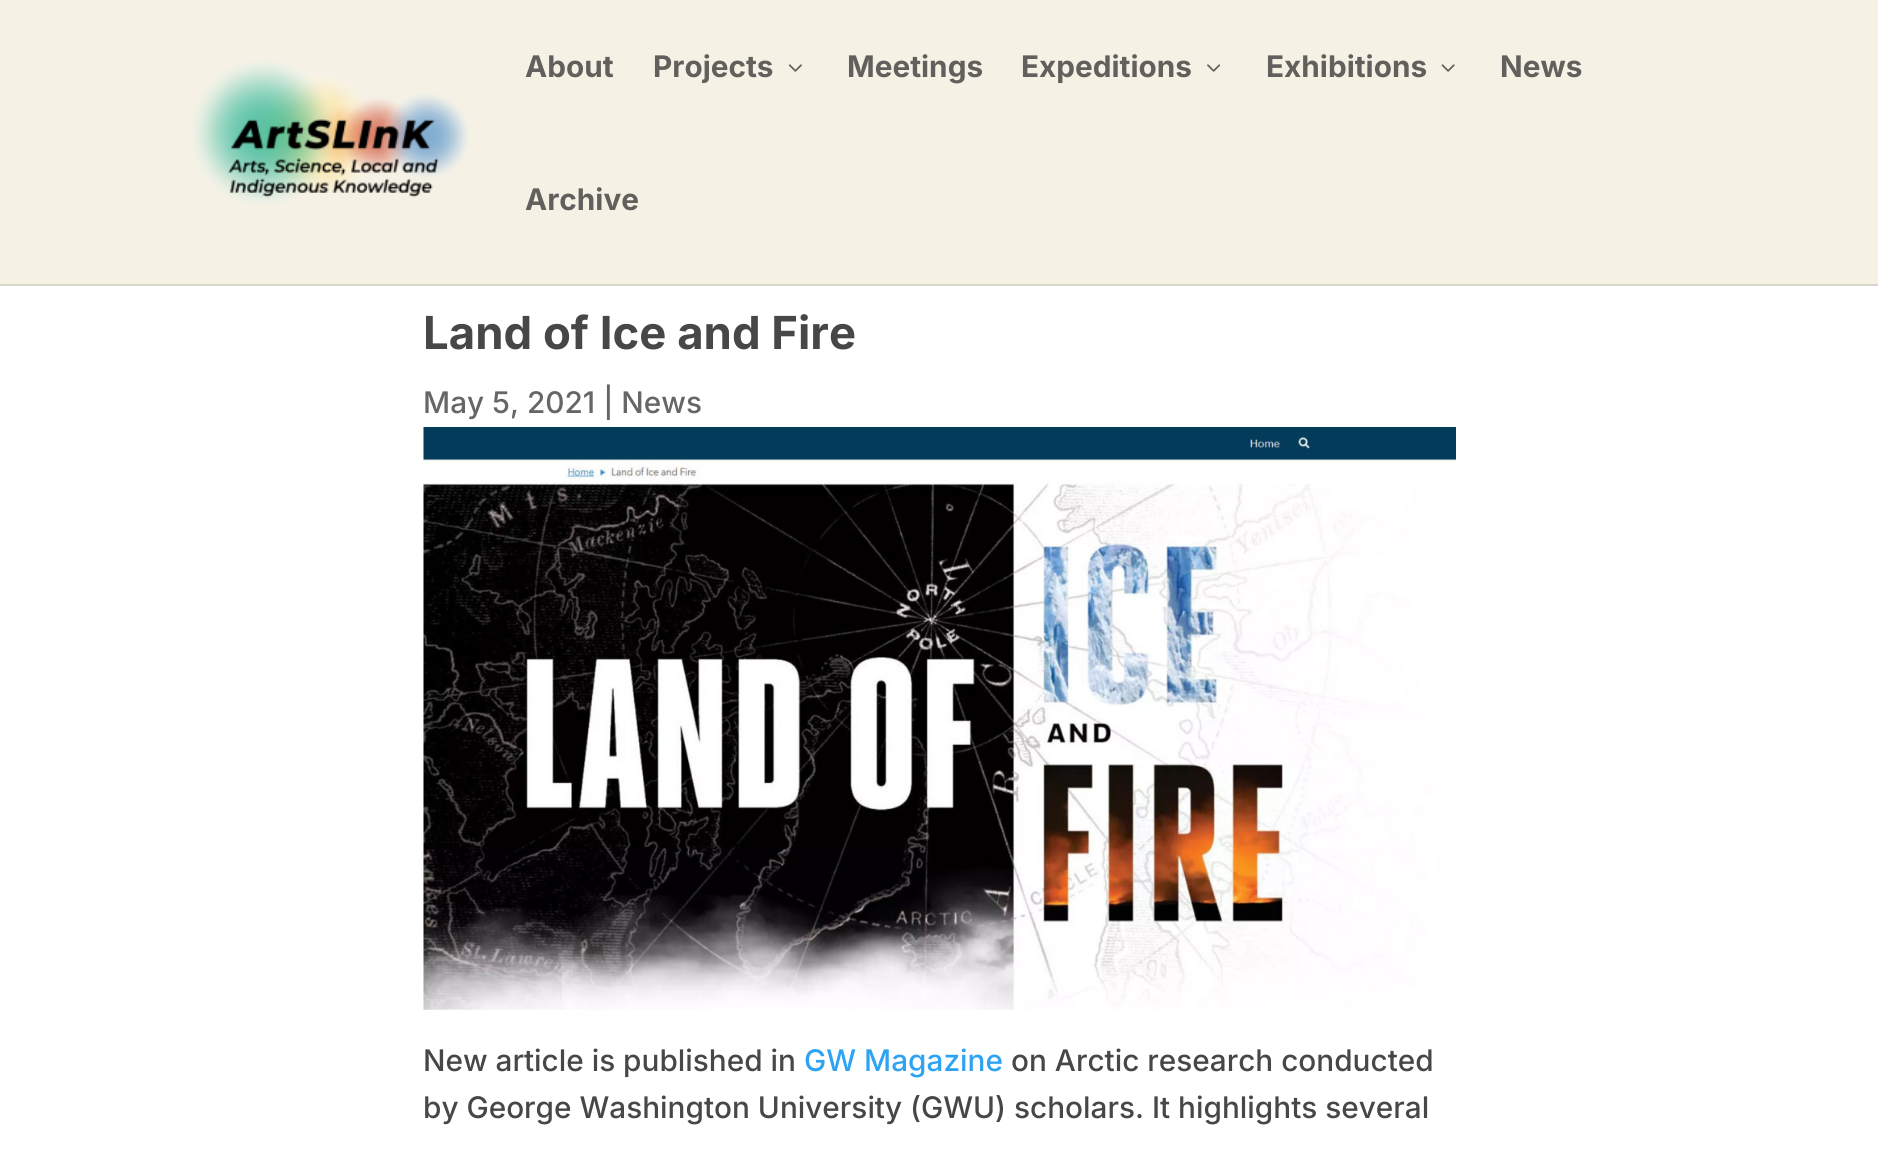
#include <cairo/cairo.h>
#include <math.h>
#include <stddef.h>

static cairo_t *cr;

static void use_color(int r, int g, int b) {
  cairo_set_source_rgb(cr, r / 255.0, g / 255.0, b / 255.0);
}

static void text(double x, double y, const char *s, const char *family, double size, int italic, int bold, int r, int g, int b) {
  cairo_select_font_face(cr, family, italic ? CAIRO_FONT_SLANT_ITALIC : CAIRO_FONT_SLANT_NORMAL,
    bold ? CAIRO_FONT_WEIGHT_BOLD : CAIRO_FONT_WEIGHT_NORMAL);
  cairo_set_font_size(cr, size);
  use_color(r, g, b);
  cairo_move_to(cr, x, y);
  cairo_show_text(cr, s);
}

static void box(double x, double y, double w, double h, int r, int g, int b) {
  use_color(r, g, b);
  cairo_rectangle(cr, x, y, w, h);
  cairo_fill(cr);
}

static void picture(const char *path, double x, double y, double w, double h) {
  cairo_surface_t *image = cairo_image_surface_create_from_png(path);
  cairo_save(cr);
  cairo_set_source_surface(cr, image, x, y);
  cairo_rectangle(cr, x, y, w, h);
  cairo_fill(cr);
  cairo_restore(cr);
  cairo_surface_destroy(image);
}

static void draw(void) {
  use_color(255, 255, 255);
  cairo_paint(cr);
  box(0, 0, 1878, 284, 245, 241, 229);
  box(0, 284, 1878, 2, 216, 213, 201);
  picture("img_01.png", 192, 61, 277, 143);
  picture("img_02.png", 788, 64, 14, 8);
  picture("img_03.png", 1207, 64, 14, 8);
  picture("img_04.png", 1441, 64, 14, 8);
  picture("img_05.png", 423, 427, 1033, 583);
  text(525, 77, "About", "Inter", 29.75, 0, 1, 98, 96, 92);
  text(653, 77, "Projects", "Inter", 29.75, 0, 1, 98, 96, 92);
  text(847, 77, "Meetings", "Inter", 29.75, 0, 1, 98, 96, 92);
  text(1021, 77, "Expeditions", "Inter", 29.75, 0, 1, 98, 96, 92);
  text(1266, 77, "Exhibitions", "Inter", 29.75, 0, 1, 98, 96, 92);
  text(1500, 77, "News", "Inter", 29.75, 0, 1, 98, 96, 92);
  text(525, 210, "Archive", "Inter", 29.75, 0, 1, 98, 96, 92);
  text(423, 349, "Land of Ice and Fire", "Inter", 45.5, 0, 1, 71, 71, 71);
  text(423, 413, "May 5, 2021 | News", "Inter Medium", 29.75, 0, 0, 102, 102, 102);
  text(423, 1071, "New article is published in", "Inter Medium", 29.75, 0, 0, 71, 71, 71);
  text(804, 1071, "GW Magazine", "Inter Medium", 29.75, 0, 0, 46, 163, 242);
  text(1011, 1071, "on Arctic research conducted", "Inter Medium", 29.75, 0, 0, 71, 71, 71);
  text(423, 1118, "by George Washington University (GWU) scholars. It highlights several", "Inter Medium", 29.75, 0, 0, 71, 71, 71);
}

int main(void) {
  cairo_surface_t *surface = cairo_image_surface_create(CAIRO_FORMAT_RGB24, 1878, 1151);
  cr = cairo_create(surface);
  cairo_font_options_t *options = cairo_font_options_create();
  cairo_font_options_set_hint_metrics(options, CAIRO_HINT_METRICS_OFF);
  cairo_font_options_set_hint_style(options, CAIRO_HINT_STYLE_NONE);
  cairo_set_font_options(cr, options);
  cairo_set_miter_limit(cr, 4);
  draw();
  cairo_surface_write_to_png(surface, "out.png");
  cairo_font_options_destroy(options);
  cairo_destroy(cr);
  cairo_surface_destroy(surface);
  return 0;
}
